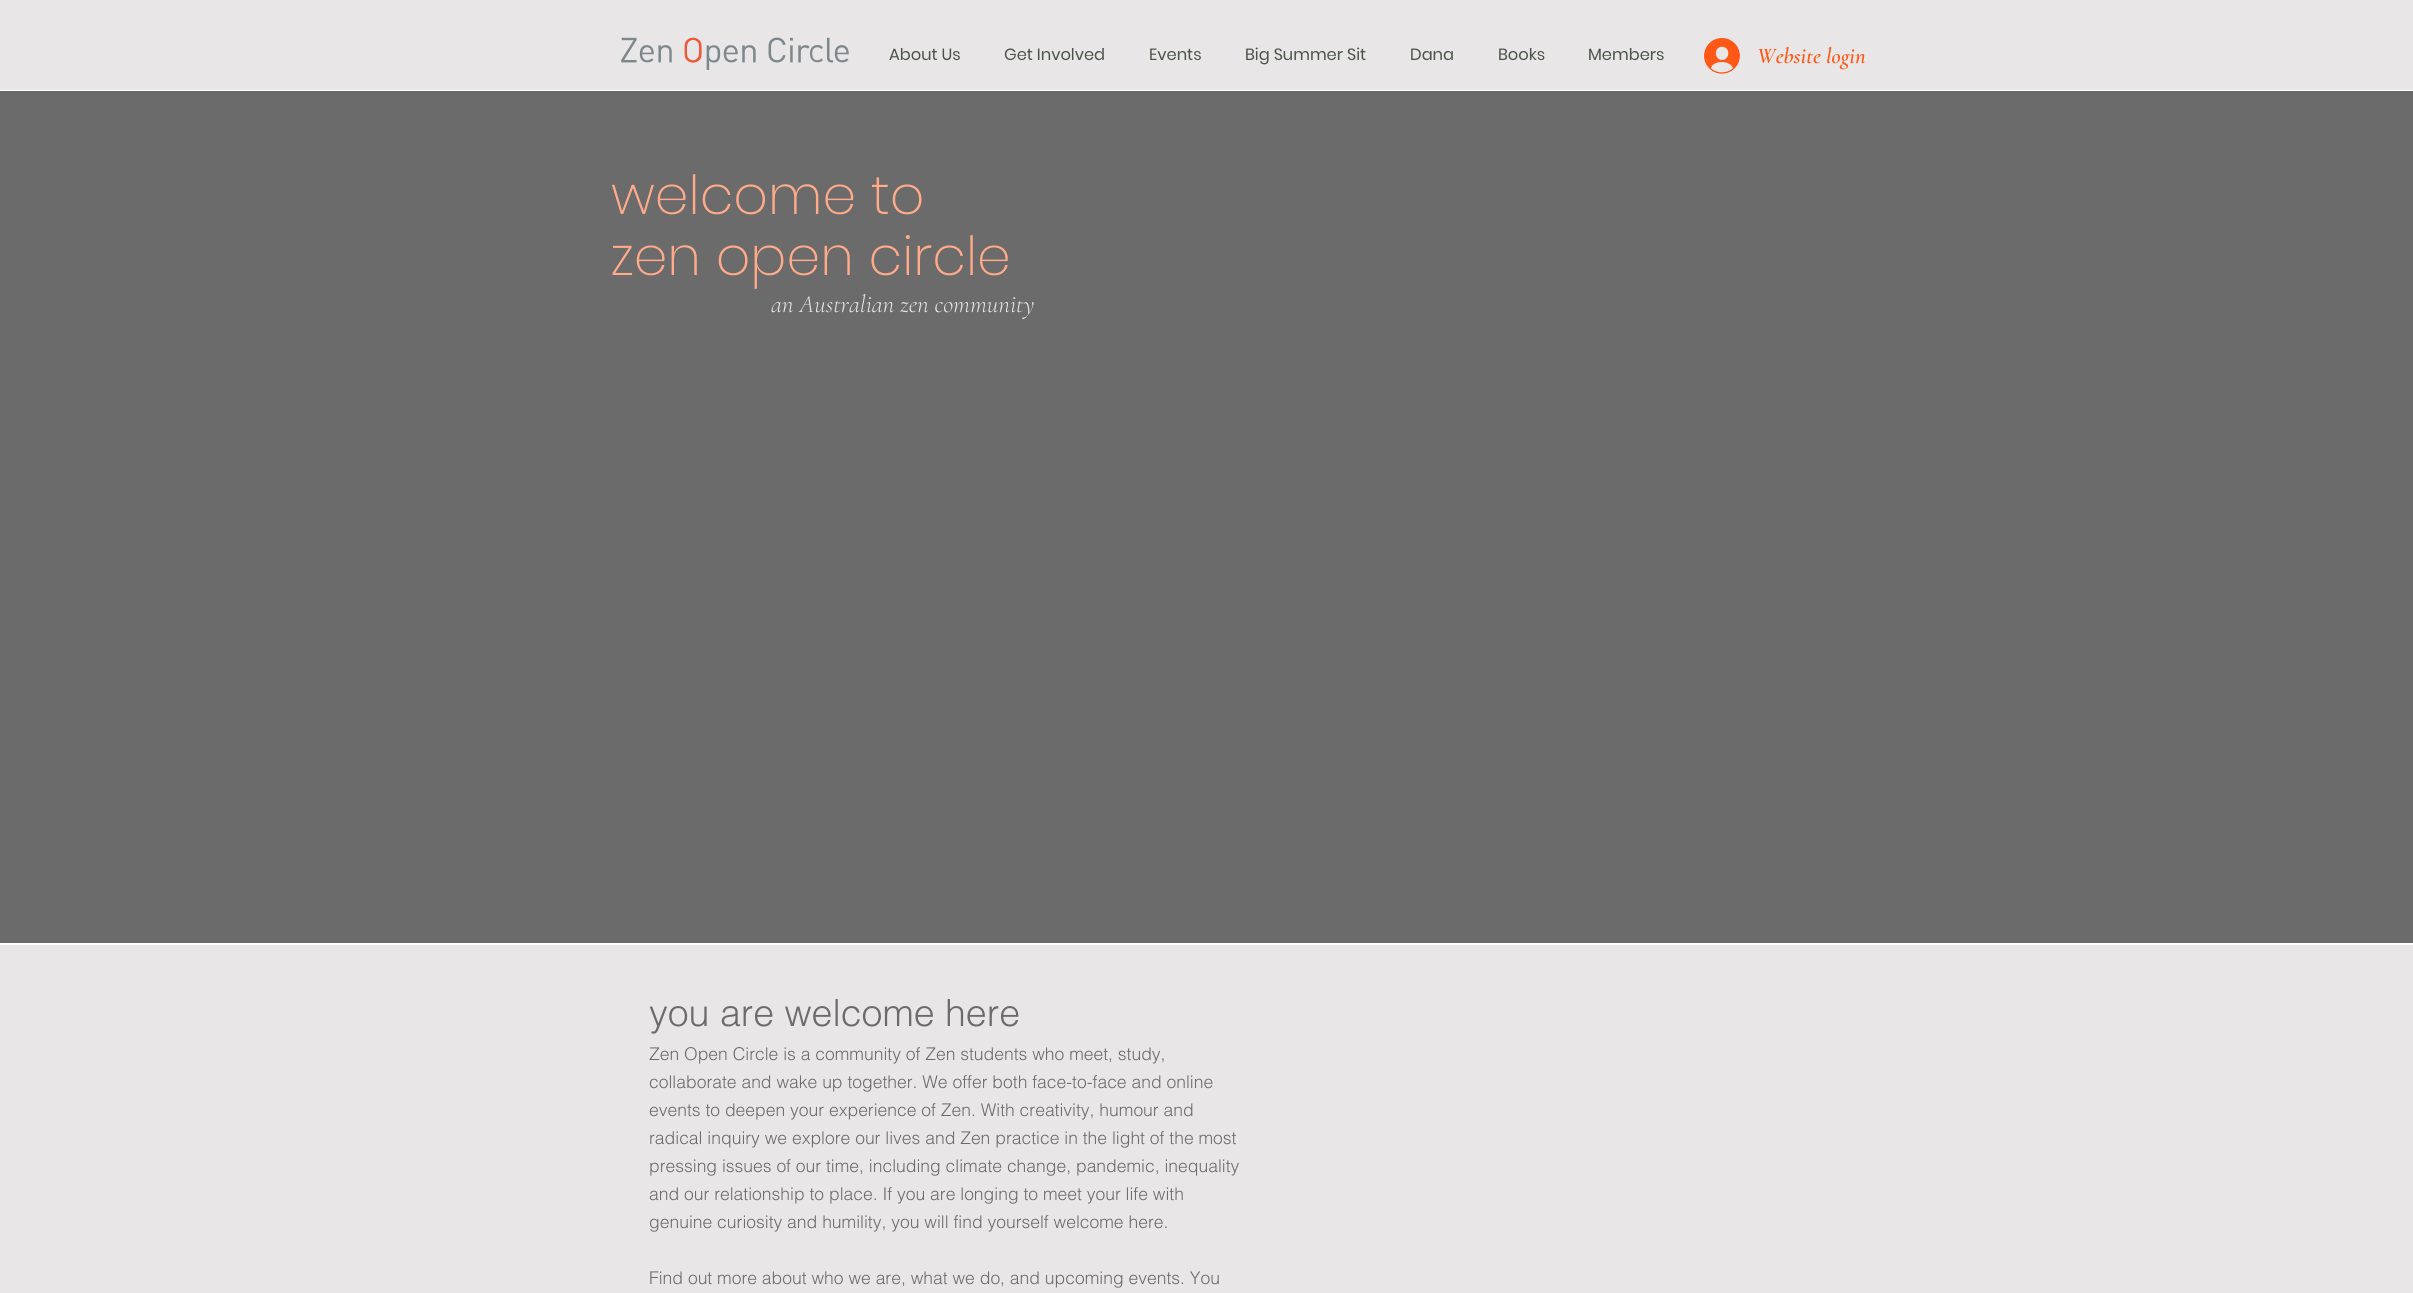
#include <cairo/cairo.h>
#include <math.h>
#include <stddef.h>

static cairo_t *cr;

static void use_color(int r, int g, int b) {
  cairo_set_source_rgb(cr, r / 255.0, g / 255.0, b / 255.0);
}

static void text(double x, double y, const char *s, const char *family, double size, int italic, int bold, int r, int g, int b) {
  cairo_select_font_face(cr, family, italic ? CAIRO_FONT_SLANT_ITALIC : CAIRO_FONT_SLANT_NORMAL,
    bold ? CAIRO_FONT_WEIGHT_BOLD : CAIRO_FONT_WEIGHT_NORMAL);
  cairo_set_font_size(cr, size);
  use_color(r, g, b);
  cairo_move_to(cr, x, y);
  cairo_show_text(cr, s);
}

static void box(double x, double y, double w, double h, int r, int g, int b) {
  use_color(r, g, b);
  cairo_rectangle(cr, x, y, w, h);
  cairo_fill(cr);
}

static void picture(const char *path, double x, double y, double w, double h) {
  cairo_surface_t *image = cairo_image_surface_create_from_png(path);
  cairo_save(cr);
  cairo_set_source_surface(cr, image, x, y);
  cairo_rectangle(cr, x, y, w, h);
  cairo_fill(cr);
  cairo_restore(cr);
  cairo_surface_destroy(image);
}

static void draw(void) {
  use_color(255, 255, 255);
  cairo_paint(cr);
  box(0, 0, 2413, 90, 232, 230, 230);
  picture("img_01.png", 621, 37, 228, 33);
  picture("img_02.png", 1704, 38, 36, 36);
  box(0, 91, 2413, 852, 107, 107, 107);
  box(0, 945, 2413, 348, 232, 230, 230);
  text(889, 60, "About Us", "Poppins", 16.25, 0, 0, 75, 83, 73);
  text(1004, 60, "Get Involved", "Poppins", 16.25, 0, 0, 75, 83, 73);
  text(1149, 60, "Events", "Poppins", 16.25, 0, 0, 75, 83, 73);
  text(1245, 60, "Big Summer Sit", "Poppins", 16.25, 0, 0, 75, 83, 73);
  text(1410, 60, "Dana", "Poppins", 16.25, 0, 0, 75, 83, 73);
  text(1498, 60, "Books", "Poppins", 16.25, 0, 0, 75, 83, 73);
  text(1588, 60, "Members", "Poppins", 16.25, 0, 0, 75, 83, 73);
  text(1757, 63, "Website login", "Cormorant Garamond SemiBold", 22.5, 1, 0, 255, 87, 21);
  text(611, 214, "welcome to", "Poppins ExtraLight", 53.75, 0, 0, 255, 171, 138);
  text(611, 275, "zen open circle", "Poppins ExtraLight", 53.75, 0, 0, 255, 171, 138);
  text(771, 312, "an Australian zen community", "Cormorant Garamond Light", 25, 1, 0, 232, 230, 230);
  text(649, 1026, "you are welcome here", "helvetica Light", 37.5, 0, 0, 107, 107, 107);
  text(649, 1060, "Zen Open Circle is a community of Zen students who meet, study,", "helvetica Light", 17.5, 0, 0, 107, 107, 107);
  text(649, 1088, "collaborate and wake up together. We offer both face-to-face and online", "helvetica Light", 17.5, 0, 0, 107, 107, 107);
  text(649, 1116, "events to deepen your experience of Zen. With creativity, humour and", "helvetica Light", 17.5, 0, 0, 107, 107, 107);
  text(649, 1144, "radical inquiry we explore our lives and Zen practice in the light of the most", "helvetica Light", 17.5, 0, 0, 107, 107, 107);
  text(649, 1172, "pressing issues of our time, including climate change, pandemic, inequality", "helvetica Light", 17.5, 0, 0, 107, 107, 107);
  text(649, 1200, "and our relationship to place. If you are longing to meet your life with", "helvetica Light", 17.5, 0, 0, 107, 107, 107);
  text(649, 1228, "genuine curiosity and humility, you will find yourself welcome here.", "helvetica Light", 17.5, 0, 0, 107, 107, 107);
  text(649, 1284, "Find out more about who we are, what we do, and upcoming events. You", "helvetica Light", 17.5, 0, 0, 107, 107, 107);
}

int main(void) {
  cairo_surface_t *surface = cairo_image_surface_create(CAIRO_FORMAT_RGB24, 2413, 1293);
  cr = cairo_create(surface);
  cairo_font_options_t *options = cairo_font_options_create();
  cairo_font_options_set_hint_metrics(options, CAIRO_HINT_METRICS_OFF);
  cairo_font_options_set_hint_style(options, CAIRO_HINT_STYLE_NONE);
  cairo_set_font_options(cr, options);
  cairo_set_miter_limit(cr, 4);
  draw();
  cairo_surface_write_to_png(surface, "out.png");
  cairo_font_options_destroy(options);
  cairo_destroy(cr);
  cairo_surface_destroy(surface);
  return 0;
}
